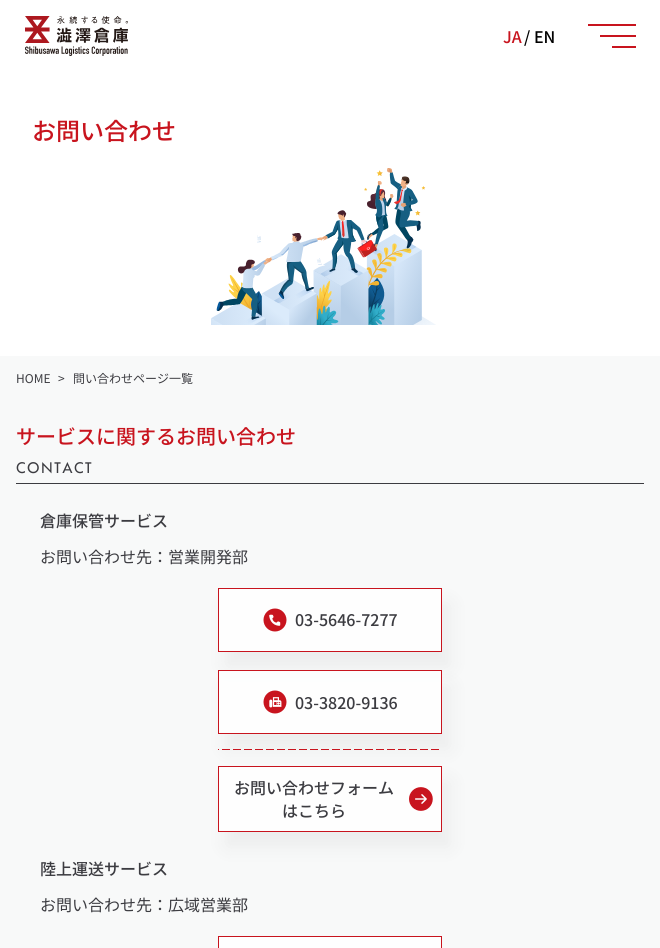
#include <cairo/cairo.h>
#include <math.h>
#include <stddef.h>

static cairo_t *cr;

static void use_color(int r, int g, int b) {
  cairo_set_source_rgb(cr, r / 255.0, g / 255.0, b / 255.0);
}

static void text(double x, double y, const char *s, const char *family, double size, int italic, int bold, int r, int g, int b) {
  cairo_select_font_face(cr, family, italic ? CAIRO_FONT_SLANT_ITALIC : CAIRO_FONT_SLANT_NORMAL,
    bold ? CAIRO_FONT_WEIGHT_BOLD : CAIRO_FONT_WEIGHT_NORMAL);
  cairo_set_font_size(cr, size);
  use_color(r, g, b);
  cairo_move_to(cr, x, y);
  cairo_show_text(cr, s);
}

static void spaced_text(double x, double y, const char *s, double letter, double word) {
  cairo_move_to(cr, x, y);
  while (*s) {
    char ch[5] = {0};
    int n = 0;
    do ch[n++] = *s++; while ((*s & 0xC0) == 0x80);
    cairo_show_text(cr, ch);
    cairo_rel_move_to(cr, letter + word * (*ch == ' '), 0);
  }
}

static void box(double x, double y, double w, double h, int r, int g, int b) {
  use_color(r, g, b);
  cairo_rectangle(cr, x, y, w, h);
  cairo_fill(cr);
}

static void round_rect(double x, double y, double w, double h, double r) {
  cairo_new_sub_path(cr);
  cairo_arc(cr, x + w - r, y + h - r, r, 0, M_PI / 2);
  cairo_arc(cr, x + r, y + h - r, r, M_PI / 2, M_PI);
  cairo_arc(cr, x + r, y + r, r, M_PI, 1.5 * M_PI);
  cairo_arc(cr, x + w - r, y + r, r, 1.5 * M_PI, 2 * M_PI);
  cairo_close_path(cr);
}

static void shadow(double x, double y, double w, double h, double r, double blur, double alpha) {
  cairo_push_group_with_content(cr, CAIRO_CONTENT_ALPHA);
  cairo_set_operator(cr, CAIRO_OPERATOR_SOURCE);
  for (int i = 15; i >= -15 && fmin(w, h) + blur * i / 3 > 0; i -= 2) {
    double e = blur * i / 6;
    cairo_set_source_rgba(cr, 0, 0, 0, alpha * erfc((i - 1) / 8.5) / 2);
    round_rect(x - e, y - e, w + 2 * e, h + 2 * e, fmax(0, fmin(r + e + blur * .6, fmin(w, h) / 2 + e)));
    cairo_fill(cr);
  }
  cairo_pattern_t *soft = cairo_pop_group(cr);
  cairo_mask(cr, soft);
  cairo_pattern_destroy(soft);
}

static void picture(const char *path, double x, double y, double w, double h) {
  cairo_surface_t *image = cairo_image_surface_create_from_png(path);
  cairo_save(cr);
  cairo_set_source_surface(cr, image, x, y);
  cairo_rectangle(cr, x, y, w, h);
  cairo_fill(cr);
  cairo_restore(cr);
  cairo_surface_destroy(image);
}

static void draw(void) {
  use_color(248, 249, 249);
  cairo_paint(cr);
  box(0, 0, 660, 356, 255, 255, 255);
  picture("img_01.png", 25, 16, 103, 40);
  box(588, 24, 48, 2, 200, 20, 30);
  box(600, 35, 36, 2, 200, 20, 30);
  box(612, 46, 24, 2, 200, 20, 30);
  picture("img_02.png", 211, 168, 225, 157);
  box(16, 483, 628, 1, 60, 60, 65);
  use_color(0, 0, 0);
  shadow(226, 603, 224, 64, 0, 10, 0.05);
  use_color(254, 254, 254);
  cairo_rectangle(cr, 218.5, 588.5, 223, 63);
  cairo_fill_preserve(cr);
  use_color(200, 20, 30);
  cairo_set_line_width(cr, 1);
  cairo_stroke(cr);
  picture("img_03.png", 263, 608, 24, 24);
  cairo_save(cr);
  cairo_set_fill_rule(cr, CAIRO_FILL_RULE_EVEN_ODD);
  cairo_new_path(cr);
  cairo_move_to(cr, 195, 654);
  cairo_line_to(cr, 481, 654);
  cairo_line_to(cr, 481, 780);
  cairo_line_to(cr, 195, 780);
  cairo_close_path(cr);
  cairo_move_to(cr, 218, 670);
  cairo_line_to(cr, 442, 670);
  cairo_line_to(cr, 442, 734);
  cairo_line_to(cr, 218, 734);
  cairo_close_path(cr);
  cairo_clip(cr);
  use_color(0, 0, 0);
  shadow(226, 685, 224, 64, 0, 10, 0.05);
  cairo_restore(cr);
  cairo_set_source_rgba(cr, 1, 1, 1, 0.8);
  cairo_rectangle(cr, 218.5, 670.5, 223, 63);
  cairo_fill_preserve(cr);
  use_color(200, 20, 30);
  cairo_stroke(cr);
  picture("img_04.png", 263, 690, 24, 24);
  picture("img_05.png", 218, 749, 221, 1);
  use_color(0, 0, 0);
  shadow(226, 781, 224, 66, 0, 10, 0.05);
  use_color(254, 254, 254);
  cairo_rectangle(cr, 218.5, 766.5, 223, 65);
  cairo_fill_preserve(cr);
  use_color(200, 20, 30);
  cairo_stroke(cr);
  picture("img_06.png", 409, 787, 24, 24);
  use_color(254, 254, 254);
  cairo_rectangle(cr, 218.5, 936.5, 223, 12);
  cairo_fill_preserve(cr);
  use_color(200, 20, 30);
  cairo_stroke(cr);
  text(503, 43, "JA", "Noto Sans JP Medium", 16, 0, 0, 200, 20, 30);
  text(524, 43, "/", "Noto Sans JP Medium", 16, 0, 0, 0, 0, 0);
  text(534, 43, "EN", "Noto Sans JP Medium", 16, 0, 0, 0, 0, 0);
  text(32, 140, "お問い合わせ", "Noto Sans JP Medium", 24, 0, 0, 200, 20, 30);
  text(16, 383, "HOME", "Noto Sans JP", 12, 0, 0, 60, 60, 65);
  text(58, 383, ">", "Noto Sans JP", 12, 0, 0, 60, 60, 65);
  text(73, 383, "問い合わせページ一覧", "Noto Sans JP", 12, 0, 0, 60, 60, 65);
  text(16, 444, "サービスに関するお問い合わせ", "Noto Sans JP Medium", 20, 0, 0, 200, 20, 30);
  cairo_select_font_face(cr, "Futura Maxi", CAIRO_FONT_SLANT_NORMAL, CAIRO_FONT_WEIGHT_NORMAL);
  cairo_set_font_size(cr, 14);
  use_color(60, 60, 65);
  spaced_text(16, 473, "CONTACT", 1.5, 0);
  text(40, 527, "倉庫保管サービス", "Noto Sans JP Medium", 16, 0, 0, 60, 60, 65);
  text(40, 563, "お問い合わせ先：営業開発部", "Noto Sans JP", 16, 0, 0, 60, 60, 65);
  text(295, 626, "03-5646-7277", "Noto Sans JP Medium", 16, 0, 0, 60, 60, 65);
  text(295, 709, "03-3820-9136", "Noto Sans JP Medium", 16, 0, 0, 60, 60, 65);
  text(234, 794, "お問い合わせフォーム", "Noto Sans JP Medium", 16, 0, 0, 60, 60, 65);
  text(282, 817, "はこちら", "Noto Sans JP Medium", 16, 0, 0, 60, 60, 65);
  text(40, 875, "陸上運送サービス", "Noto Sans JP Medium", 16, 0, 0, 60, 60, 65);
  text(40, 911, "お問い合わせ先：広域営業部", "Noto Sans JP", 16, 0, 0, 60, 60, 65);
}

int main(void) {
  cairo_surface_t *surface = cairo_image_surface_create(CAIRO_FORMAT_RGB24, 660, 948);
  cr = cairo_create(surface);
  cairo_font_options_t *options = cairo_font_options_create();
  cairo_font_options_set_hint_metrics(options, CAIRO_HINT_METRICS_OFF);
  cairo_font_options_set_hint_style(options, CAIRO_HINT_STYLE_NONE);
  cairo_set_font_options(cr, options);
  cairo_set_miter_limit(cr, 4);
  draw();
  cairo_surface_write_to_png(surface, "out.png");
  cairo_font_options_destroy(options);
  cairo_destroy(cr);
  cairo_surface_destroy(surface);
  return 0;
}
